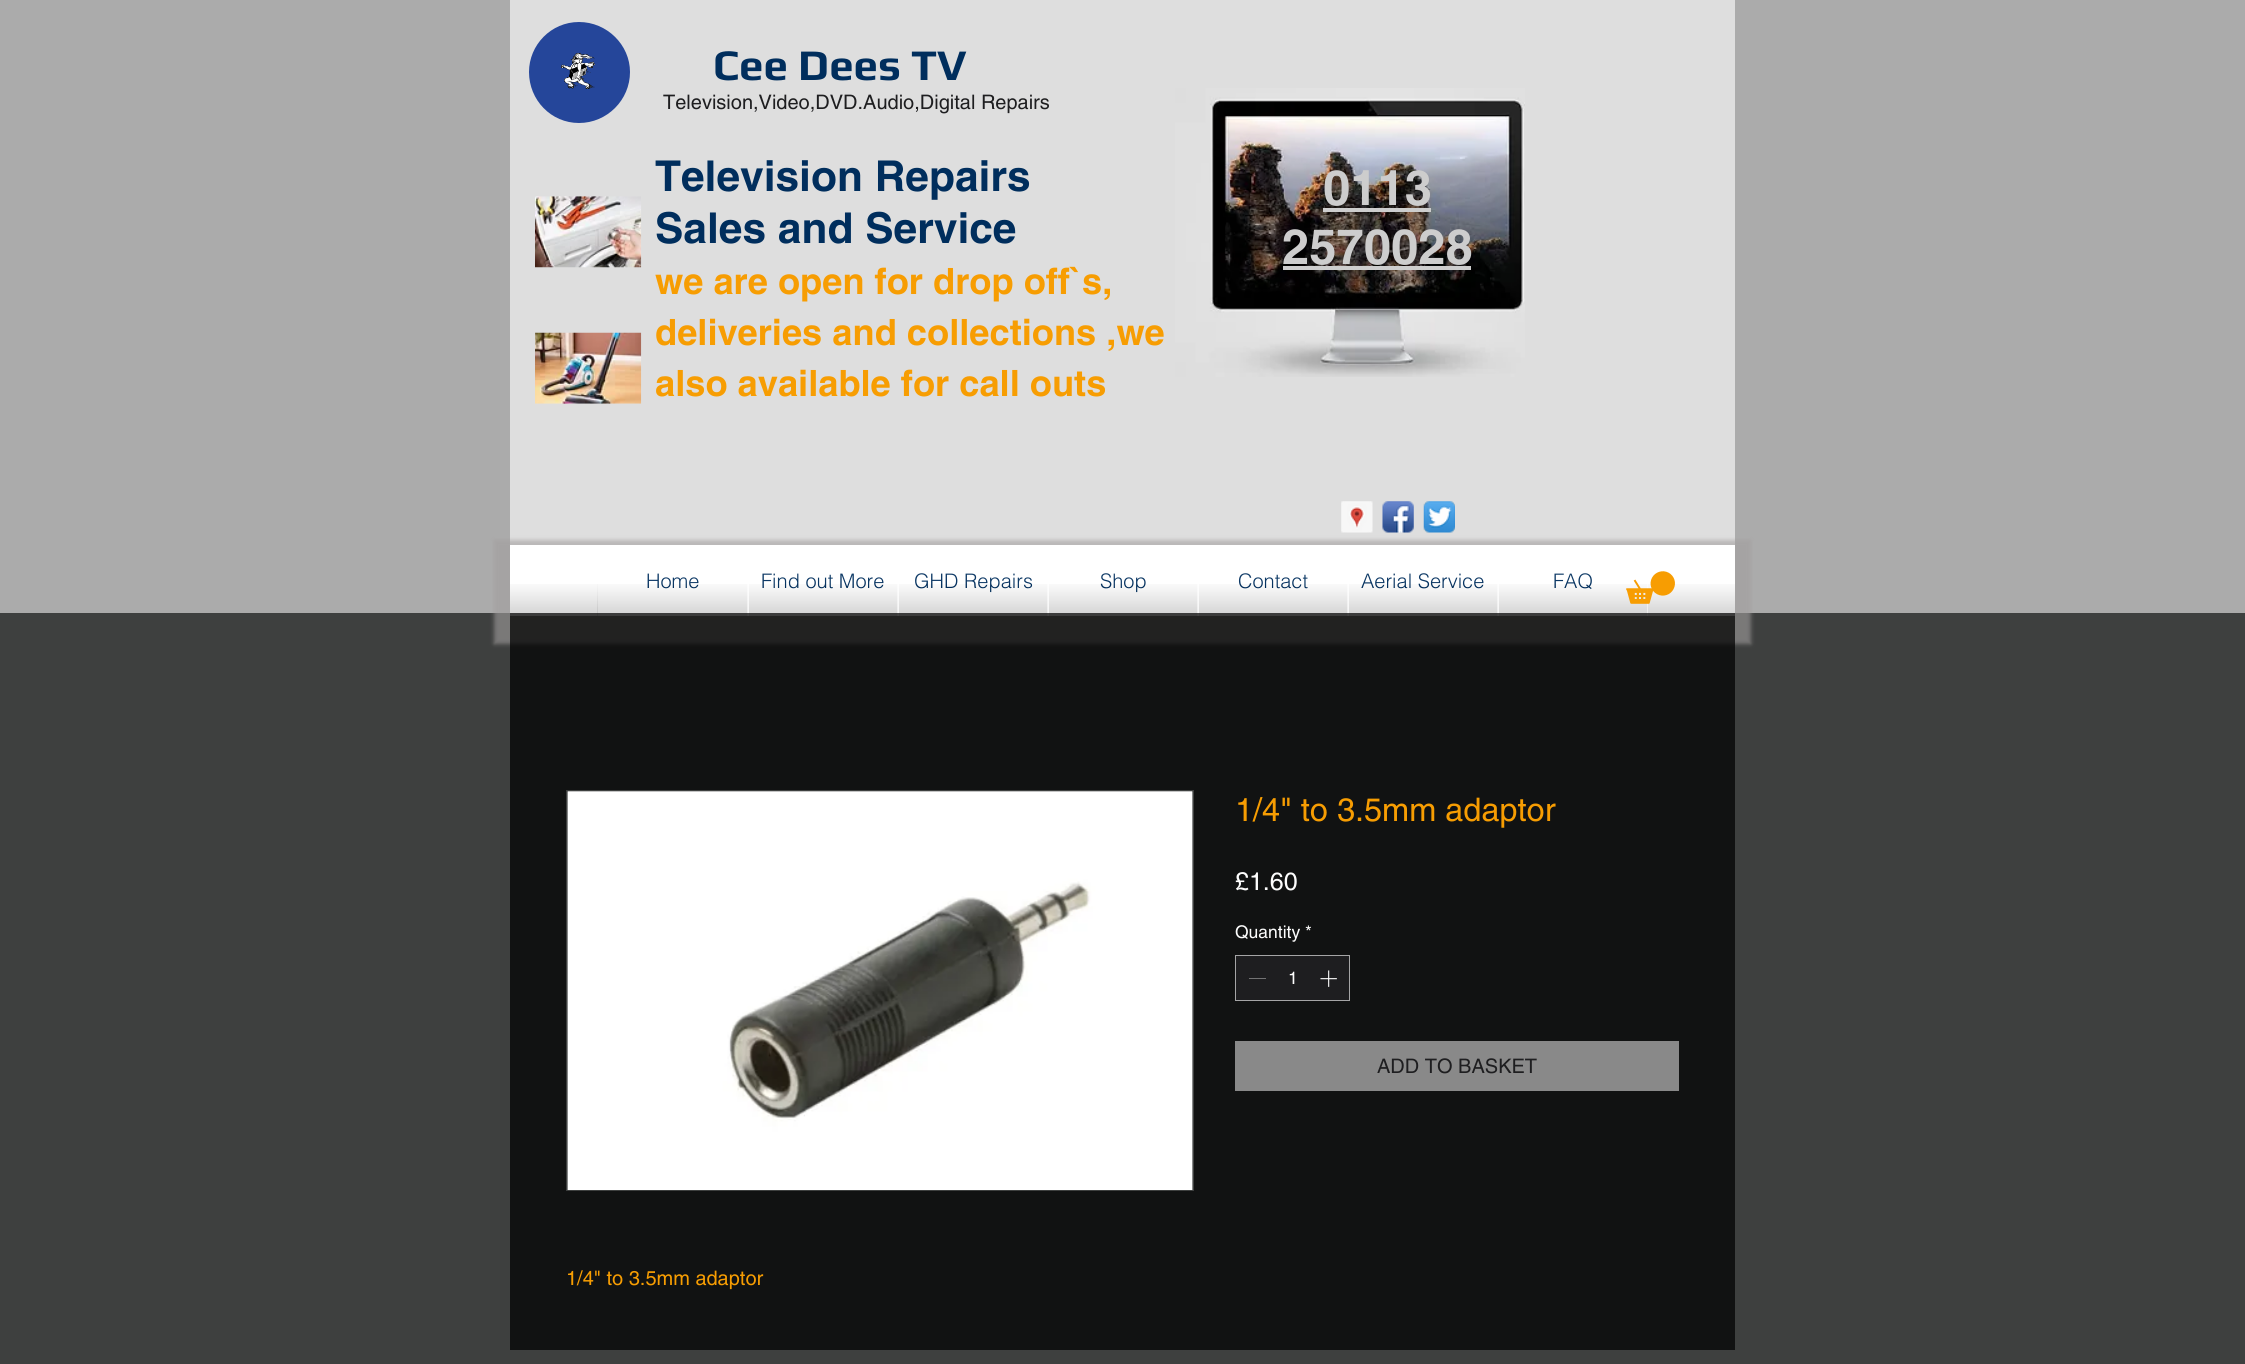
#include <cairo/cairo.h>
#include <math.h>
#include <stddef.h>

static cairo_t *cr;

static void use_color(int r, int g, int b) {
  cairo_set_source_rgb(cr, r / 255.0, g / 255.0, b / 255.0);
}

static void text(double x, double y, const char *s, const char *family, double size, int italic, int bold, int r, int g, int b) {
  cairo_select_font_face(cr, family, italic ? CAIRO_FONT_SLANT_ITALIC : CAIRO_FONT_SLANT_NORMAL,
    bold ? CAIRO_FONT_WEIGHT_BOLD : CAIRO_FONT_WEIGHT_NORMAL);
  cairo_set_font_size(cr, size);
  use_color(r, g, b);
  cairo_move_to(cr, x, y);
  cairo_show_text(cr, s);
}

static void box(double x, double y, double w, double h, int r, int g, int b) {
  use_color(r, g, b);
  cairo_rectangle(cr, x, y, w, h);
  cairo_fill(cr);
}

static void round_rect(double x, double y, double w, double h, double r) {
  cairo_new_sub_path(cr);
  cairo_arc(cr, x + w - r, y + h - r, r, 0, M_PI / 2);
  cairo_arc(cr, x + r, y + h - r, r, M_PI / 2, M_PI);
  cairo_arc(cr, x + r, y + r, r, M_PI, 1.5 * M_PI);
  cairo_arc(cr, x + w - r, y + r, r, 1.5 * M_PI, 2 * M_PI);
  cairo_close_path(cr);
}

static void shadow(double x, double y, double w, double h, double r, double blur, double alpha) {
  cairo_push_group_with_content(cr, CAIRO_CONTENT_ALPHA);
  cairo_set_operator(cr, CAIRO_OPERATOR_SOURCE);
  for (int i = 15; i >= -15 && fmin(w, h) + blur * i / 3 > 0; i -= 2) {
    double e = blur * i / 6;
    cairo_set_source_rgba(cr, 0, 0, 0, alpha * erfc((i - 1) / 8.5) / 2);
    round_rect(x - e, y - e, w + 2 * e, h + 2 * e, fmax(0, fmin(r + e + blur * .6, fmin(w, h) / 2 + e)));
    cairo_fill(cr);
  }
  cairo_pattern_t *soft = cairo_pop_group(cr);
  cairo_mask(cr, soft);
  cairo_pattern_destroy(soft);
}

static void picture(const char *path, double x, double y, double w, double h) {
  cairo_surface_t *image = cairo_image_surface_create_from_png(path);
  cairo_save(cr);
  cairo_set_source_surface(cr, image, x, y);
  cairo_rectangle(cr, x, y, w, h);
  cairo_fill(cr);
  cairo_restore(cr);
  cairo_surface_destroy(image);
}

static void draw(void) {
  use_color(62, 64, 63);
  cairo_paint(cr);
  box(0, 0, 2245, 613, 171, 171, 171);
  box(510, 0, 1225, 545, 222, 222, 222);
  use_color(37, 70, 154);
  cairo_new_path(cr);
  cairo_move_to(cr, 630, 72);
  cairo_curve_to(cr, 630, 100, 607, 123, 579, 123);
  cairo_curve_to(cr, 551, 123, 529, 100, 529, 72);
  cairo_curve_to(cr, 529, 45, 551, 22, 579, 22);
  cairo_curve_to(cr, 607, 22, 630, 45, 630, 72);
  cairo_close_path(cr);
  cairo_fill(cr);
  picture("img_01.png", 561, 53, 34, 36);
  picture("img_02.png", 1175, 88, 350, 289);
  picture("img_03.png", 535, 196, 107, 72);
  box(1323, 208, 108, 4, 205, 205, 205);
  box(1283, 266, 188, 4, 205, 205, 205);
  picture("img_04.png", 535, 332, 107, 72);
  picture("img_05.png", 1341, 501, 32, 32);
  picture("img_06.png", 1382, 501, 32, 32);
  picture("img_07.png", 1423, 501, 32, 32);
  use_color(162, 158, 158);
  shadow(494, 540, 1257, 104, 0, 2, 0.6);
  box(510, 545, 1225, 71, 255, 255, 255);
  picture("img_08.png", 510, 584, 1225, 32);
  box(598, 584, 1050, 32, 255, 255, 255);
  text(713, 80, "Cee Dees TV", "Play", 43.75, 0, 1, 0, 46, 93);
  text(663, 109, "Television,Video,DVD.Audio,Digital Repairs", "helvetica", 20, 0, 0, 30, 30, 32);
  text(655, 191, "Television Repairs", "helvetica", 42.5, 0, 1, 0, 46, 93);
  text(655, 243, "Sales and Service", "helvetica", 42.5, 0, 1, 0, 46, 93);
  text(655, 294, "we are open for drop off`s,", "helvetica", 36.25, 0, 1, 247, 157, 2);
  text(655, 345, "deliveries and collections ,we", "helvetica", 36.25, 0, 1, 247, 157, 2);
  text(655, 396, "also available for call outs", "helvetica", 36.25, 0, 1, 247, 157, 2);
  text(1323, 205, "0113", "helvetica", 49, 0, 1, 205, 205, 205);
  text(1282, 264, "2570028", "helvetica", 49, 0, 1, 205, 205, 205);
  text(646, 588, "Home", "helvetica Light", 20, 0, 0, 0, 46, 93);
  picture("img_09.png", 647, 573, 51, 13);
  picture("img_10.png", 597, 584, 151, 32);
  text(761, 588, "Find out More", "helvetica Light", 20, 0, 0, 0, 46, 93);
  picture("img_11.png", 763, 573, 121, 13);
  picture("img_12.png", 748, 584, 150, 32);
  text(914, 588, "GHD Repairs", "helvetica Light", 20, 0, 0, 0, 46, 93);
  picture("img_13.png", 915, 573, 116, 13);
  picture("img_14.png", 898, 584, 150, 32);
  text(1100, 588, "Shop", "helvetica Light", 20, 0, 0, 0, 46, 93);
  picture("img_15.png", 1101, 573, 44, 13);
  picture("img_16.png", 1048, 584, 150, 32);
  text(1238, 588, "Contact", "helvetica Light", 20, 0, 0, 0, 46, 93);
  picture("img_17.png", 1239, 573, 69, 13);
  picture("img_18.png", 1198, 584, 150, 32);
  text(1361, 588, "Aerial Service", "helvetica Light", 20, 0, 0, 0, 46, 93);
  picture("img_19.png", 1363, 573, 121, 13);
  picture("img_20.png", 1348, 584, 150, 32);
  text(1553, 588, "FAQ", "helvetica Light", 20, 0, 0, 0, 46, 93);
  picture("img_21.png", 1554, 573, 38, 13);
  picture("img_22.png", 1498, 584, 150, 32);
  picture("img_23.png", 1626, 571, 49, 33);
  cairo_set_source_rgba(cr, 0, 0, 0, 0.72);
  cairo_rectangle(cr, 510, 613, 1225, 737);
  cairo_fill(cr);
  text(1235, 821, "1/4\" to 3.5mm adaptor", "helvetica", 32.5, 0, 0, 247, 157, 2);
  text(1235, 890, "£1.60", "helvetica", 25, 0, 0, 253, 253, 253);
  text(1235, 938, "Quantity *", "helvetica", 17.5, 0, 0, 253, 253, 253);
  use_color(30, 30, 32);
  cairo_rectangle(cr, 1235.5, 955.5, 114, 45);
  cairo_fill_preserve(cr);
  use_color(165, 165, 166);
  cairo_set_line_width(cr, 1);
  cairo_stroke(cr);
  box(1249, 978, 17, 1, 115, 115, 116);
  text(1288, 984, "1", "helvetica", 17.5, 0, 0, 253, 253, 253);
  picture("img_24.png", 1320, 970, 17, 17);
  box(1235, 1041, 444, 50, 137, 137, 137);
  text(1377, 1073, "ADD TO BASKET", "helvetica", 20, 0, 0, 30, 30, 32);
  cairo_rectangle(cr, 566.5, 790.5, 627, 400);
  use_color(62, 64, 63);
  cairo_stroke(cr);
  picture("img_25.png", 567, 791, 626, 399);
  text(566, 1285, "1/4\" to 3.5mm adaptor", "helvetica", 20, 0, 0, 247, 157, 2);
}

int main(void) {
  cairo_surface_t *surface = cairo_image_surface_create(CAIRO_FORMAT_RGB24, 2245, 1364);
  cr = cairo_create(surface);
  cairo_font_options_t *options = cairo_font_options_create();
  cairo_font_options_set_hint_metrics(options, CAIRO_HINT_METRICS_OFF);
  cairo_font_options_set_hint_style(options, CAIRO_HINT_STYLE_NONE);
  cairo_set_font_options(cr, options);
  cairo_set_miter_limit(cr, 4);
  draw();
  cairo_surface_write_to_png(surface, "out.png");
  cairo_font_options_destroy(options);
  cairo_destroy(cr);
  cairo_surface_destroy(surface);
  return 0;
}
